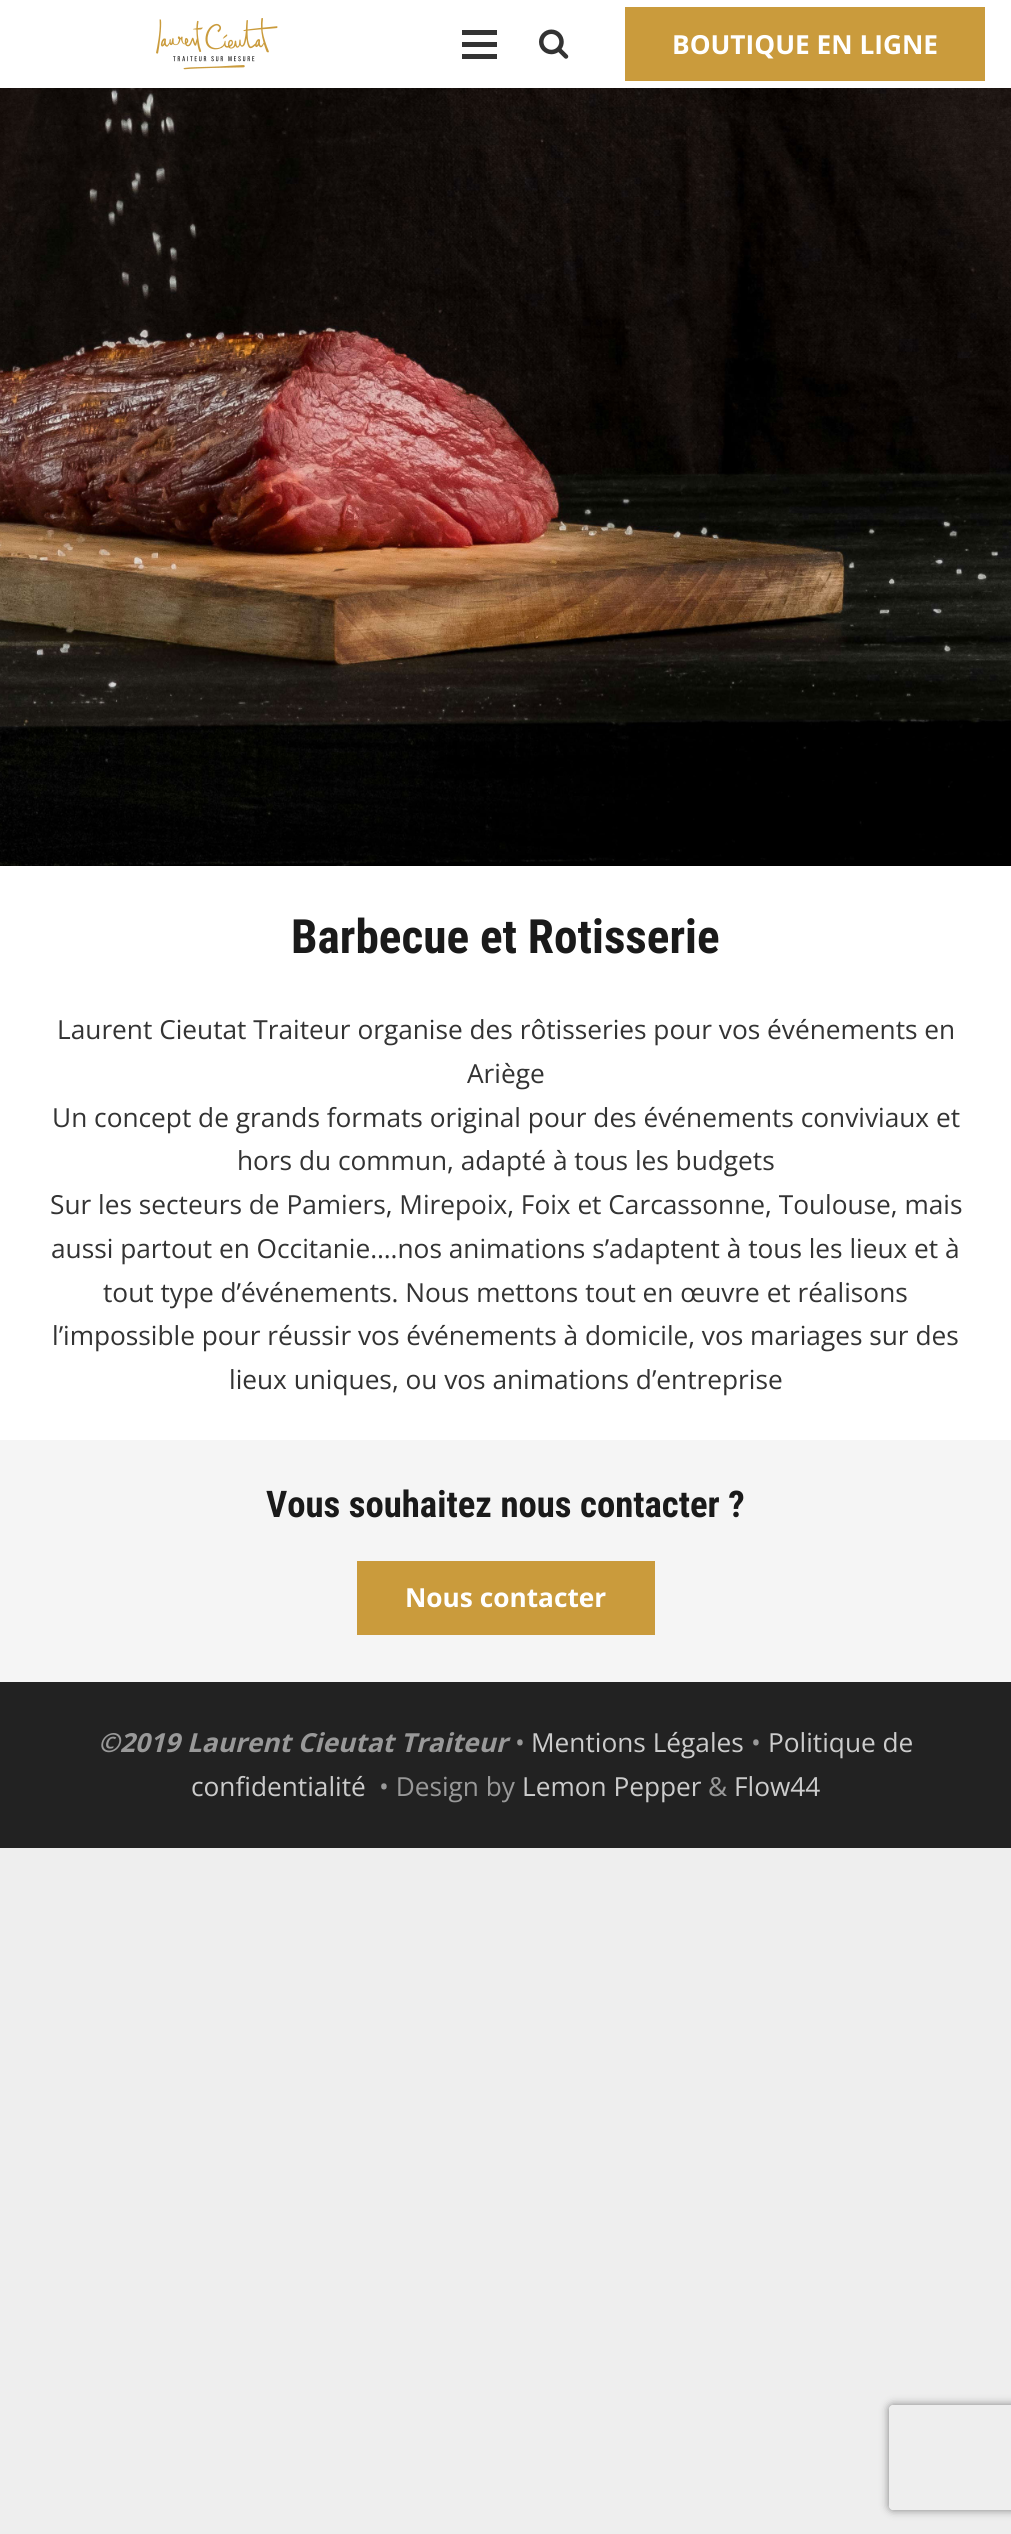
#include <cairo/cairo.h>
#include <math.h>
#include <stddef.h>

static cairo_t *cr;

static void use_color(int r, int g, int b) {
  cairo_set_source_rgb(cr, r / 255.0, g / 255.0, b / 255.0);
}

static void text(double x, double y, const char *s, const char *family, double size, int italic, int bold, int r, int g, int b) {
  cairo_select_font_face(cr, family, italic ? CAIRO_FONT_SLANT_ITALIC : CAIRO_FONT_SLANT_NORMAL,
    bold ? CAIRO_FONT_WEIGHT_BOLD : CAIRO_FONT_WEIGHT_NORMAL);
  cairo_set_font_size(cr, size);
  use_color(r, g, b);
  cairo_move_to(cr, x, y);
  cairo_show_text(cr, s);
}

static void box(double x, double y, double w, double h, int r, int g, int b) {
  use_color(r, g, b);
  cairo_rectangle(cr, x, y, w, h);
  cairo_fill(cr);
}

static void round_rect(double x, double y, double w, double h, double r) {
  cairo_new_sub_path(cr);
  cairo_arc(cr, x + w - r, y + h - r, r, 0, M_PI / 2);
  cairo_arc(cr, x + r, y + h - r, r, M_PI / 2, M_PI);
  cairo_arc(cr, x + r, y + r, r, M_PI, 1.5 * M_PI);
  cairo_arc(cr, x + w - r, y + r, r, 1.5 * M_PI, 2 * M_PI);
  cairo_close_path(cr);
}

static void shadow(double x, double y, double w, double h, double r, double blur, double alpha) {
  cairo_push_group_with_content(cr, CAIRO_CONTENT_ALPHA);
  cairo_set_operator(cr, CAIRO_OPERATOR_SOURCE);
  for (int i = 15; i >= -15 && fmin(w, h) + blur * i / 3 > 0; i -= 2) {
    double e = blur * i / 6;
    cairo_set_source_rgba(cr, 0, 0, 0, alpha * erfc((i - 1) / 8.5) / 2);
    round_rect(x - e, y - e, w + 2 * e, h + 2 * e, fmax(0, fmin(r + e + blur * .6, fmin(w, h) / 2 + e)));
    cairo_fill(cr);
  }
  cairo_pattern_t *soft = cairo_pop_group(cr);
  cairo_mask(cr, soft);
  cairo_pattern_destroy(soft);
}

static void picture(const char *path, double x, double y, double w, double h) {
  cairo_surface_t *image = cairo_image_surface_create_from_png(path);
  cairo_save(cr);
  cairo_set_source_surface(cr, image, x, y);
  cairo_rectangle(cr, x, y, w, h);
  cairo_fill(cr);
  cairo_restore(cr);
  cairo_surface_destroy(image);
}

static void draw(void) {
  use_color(238, 238, 238);
  cairo_paint(cr);
  picture("img_03.png", 0, 88, 1011, 778);
  cairo_set_source_rgba(cr, 0, 0, 0, 0.08);
  cairo_new_path(cr);
  cairo_move_to(cr, 0, 88);
  cairo_line_to(cr, 0, 89);
  cairo_line_to(cr, 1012, 89);
  cairo_line_to(cr, 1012, 2);
  cairo_line_to(cr, 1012, 88);
  cairo_close_path(cr);
  cairo_fill(cr);
  box(0, 0, 1011, 88, 255, 255, 255);
  picture("img_01.png", 156, 18, 122, 52);
  box(462, 42, 35, 5, 51, 51, 51);
  box(462, 30, 35, 5, 51, 51, 51);
  box(462, 54, 35, 5, 51, 51, 51);
  picture("img_02.png", 539, 29, 30, 30);
  box(625, 7, 360, 74, 202, 155, 60);
  box(0, 866, 1011, 574, 255, 255, 255);
  box(0, 1440, 1011, 242, 245, 245, 245);
  box(357, 1561, 298, 74, 202, 155, 60);
  box(0, 1682, 1011, 166, 34, 34, 34);
  cairo_save(cr);
  cairo_set_fill_rule(cr, CAIRO_FILL_RULE_EVEN_ODD);
  cairo_new_path(cr);
  cairo_move_to(cr, 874, 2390);
  cairo_line_to(cr, 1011, 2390);
  cairo_line_to(cr, 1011, 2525);
  cairo_line_to(cr, 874, 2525);
  cairo_close_path(cr);
  cairo_move_to(cr, 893, 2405);
  cairo_line_to(cr, 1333, 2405);
  cairo_curve_to(cr, 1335, 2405, 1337, 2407, 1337, 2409);
  cairo_line_to(cr, 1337, 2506);
  cairo_curve_to(cr, 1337, 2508, 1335, 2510, 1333, 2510);
  cairo_line_to(cr, 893, 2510);
  cairo_curve_to(cr, 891, 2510, 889, 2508, 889, 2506);
  cairo_line_to(cr, 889, 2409);
  cairo_curve_to(cr, 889, 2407, 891, 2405, 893, 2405);
  cairo_close_path(cr);
  cairo_clip(cr);
  use_color(128, 128, 128);
  shadow(889, 2405, 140, 105, 4, 4.5, 1);
  cairo_restore(cr);
  text(672, 54, "BOUTIQUE EN LIGNE", "Open Sans", 26.25, 0, 1, 255, 255, 255);
  text(291, 953, "Barbecue et Rotisserie", "Roboto Condensed", 47.25, 0, 1, 26, 26, 26);
  text(57, 1039, "Laurent Cieutat Traiteur organise des rôtisseries pour vos événements en", "Open Sans", 26.25, 0, 0, 51, 51, 51);
  text(467, 1083, "Ariège", "Open Sans", 26.25, 0, 0, 51, 51, 51);
  text(52, 1127, "Un concept de grands formats original pour des événements conviviaux et", "Open Sans", 26.25, 0, 0, 51, 51, 51);
  text(237, 1170, "hors du commun, adapté à tous les budgets", "Open Sans", 26.25, 0, 0, 51, 51, 51);
  text(50, 1214, "Sur les secteurs de Pamiers, Mirepoix, Foix et Carcassonne, Toulouse, mais", "Open Sans", 26.25, 0, 0, 51, 51, 51);
  text(51, 1258, "aussi partout en Occitanie….nos animations s’adaptent à tous les lieux et à", "Open Sans", 26.25, 0, 0, 51, 51, 51);
  text(103, 1302, "tout type d’événements. Nous mettons tout en œuvre et réalisons", "Open Sans", 26.25, 0, 0, 51, 51, 51);
  text(52, 1345, "l’impossible pour réussir vos événements à domicile, vos mariages sur des", "Open Sans", 26.25, 0, 0, 51, 51, 51);
  text(229, 1389, "lieux uniques, ou vos animations d’entreprise", "Open Sans", 26.25, 0, 0, 51, 51, 51);
  text(266, 1517, "Vous souhaitez nous contacter ?", "Roboto Condensed", 36.75, 0, 1, 26, 26, 26);
  text(405, 1607, "Nous contacter", "Open Sans", 26.25, 0, 1, 255, 255, 255);
  text(98, 1752, "©2019 Laurent Cieutat Traiteur", "Open Sans", 26.25, 1, 1, 153, 153, 153);
  text(515, 1752, "•", "Open Sans", 26.25, 0, 0, 153, 153, 153);
  text(531, 1752, "Mentions Légales", "Open Sans", 26.25, 0, 0, 204, 204, 204);
  text(751, 1752, "•", "Open Sans", 26.25, 0, 0, 153, 153, 153);
  text(768, 1752, "Politique de", "Open Sans", 26.25, 0, 0, 204, 204, 204);
  text(191, 1796, "confidentialité", "Open Sans", 26.25, 0, 0, 204, 204, 204);
  text(379, 1796, "• Design by", "Open Sans", 26.25, 0, 0, 153, 153, 153);
  text(522, 1796, "Lemon Pepper", "Open Sans", 26.25, 0, 0, 204, 204, 204);
  text(708, 1796, "&", "Open Sans", 26.25, 0, 0, 153, 153, 153);
  text(734, 1796, "Flow44", "Open Sans", 26.25, 0, 0, 204, 204, 204);
}

int main(void) {
  cairo_surface_t *surface = cairo_image_surface_create(CAIRO_FORMAT_RGB24, 1011, 2534);
  cr = cairo_create(surface);
  cairo_font_options_t *options = cairo_font_options_create();
  cairo_font_options_set_hint_metrics(options, CAIRO_HINT_METRICS_OFF);
  cairo_font_options_set_hint_style(options, CAIRO_HINT_STYLE_NONE);
  cairo_set_font_options(cr, options);
  cairo_set_miter_limit(cr, 4);
  draw();
  cairo_surface_write_to_png(surface, "out.png");
  cairo_font_options_destroy(options);
  cairo_destroy(cr);
  cairo_surface_destroy(surface);
  return 0;
}
